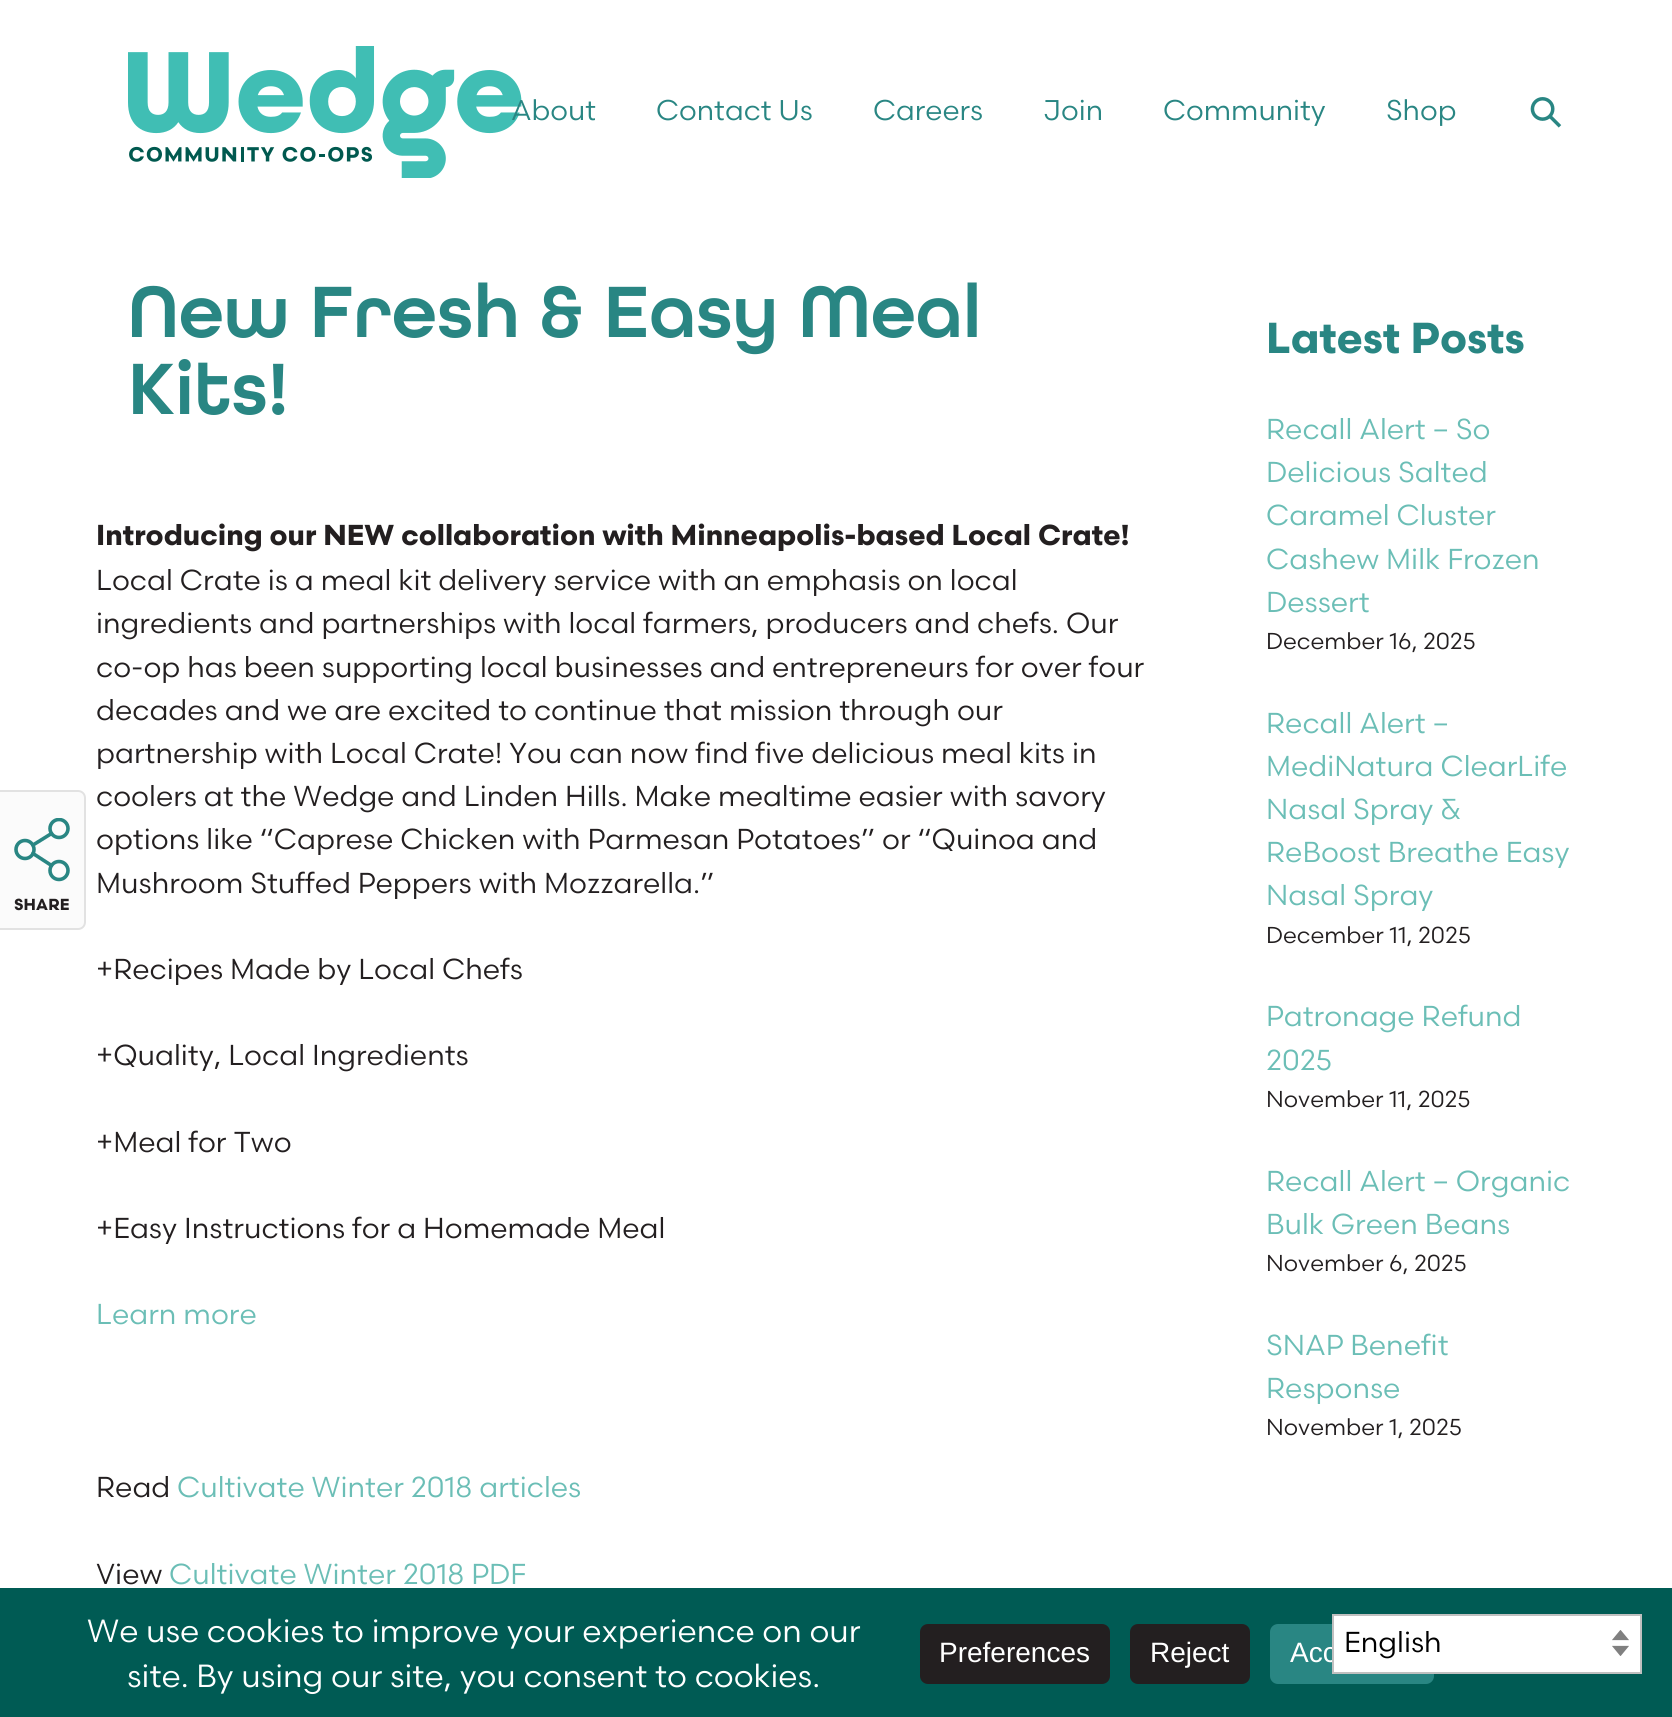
#include <cairo/cairo.h>
#include <math.h>
#include <stddef.h>

static cairo_t *cr;

static void use_color(int r, int g, int b) {
  cairo_set_source_rgb(cr, r / 255.0, g / 255.0, b / 255.0);
}

static void text(double x, double y, const char *s, const char *family, double size, int italic, int bold, int r, int g, int b) {
  cairo_select_font_face(cr, family, italic ? CAIRO_FONT_SLANT_ITALIC : CAIRO_FONT_SLANT_NORMAL,
    bold ? CAIRO_FONT_WEIGHT_BOLD : CAIRO_FONT_WEIGHT_NORMAL);
  cairo_set_font_size(cr, size);
  use_color(r, g, b);
  cairo_move_to(cr, x, y);
  cairo_show_text(cr, s);
}

static void box(double x, double y, double w, double h, int r, int g, int b) {
  use_color(r, g, b);
  cairo_rectangle(cr, x, y, w, h);
  cairo_fill(cr);
}

static void round_rect(double x, double y, double w, double h, double r) {
  cairo_new_sub_path(cr);
  cairo_arc(cr, x + w - r, y + h - r, r, 0, M_PI / 2);
  cairo_arc(cr, x + r, y + h - r, r, M_PI / 2, M_PI);
  cairo_arc(cr, x + r, y + r, r, M_PI, 1.5 * M_PI);
  cairo_arc(cr, x + w - r, y + r, r, 1.5 * M_PI, 2 * M_PI);
  cairo_close_path(cr);
}

static void picture(const char *path, double x, double y, double w, double h) {
  cairo_surface_t *image = cairo_image_surface_create_from_png(path);
  cairo_save(cr);
  cairo_set_source_surface(cr, image, x, y);
  cairo_rectangle(cr, x, y, w, h);
  cairo_fill(cr);
  cairo_restore(cr);
  cairo_surface_destroy(image);
}

static void draw(void) {
  use_color(255, 255, 255);
  cairo_paint(cr);
  picture("img_01.png", 128, 46, 394, 132);
  picture("img_02.png", 1530, 97, 32, 31);
  cairo_set_source_rgba(cr, 0.98, 0.98, 0.98, 0.7);
  cairo_new_path(cr);
  cairo_move_to(cr, -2, 790);
  cairo_line_to(cr, 78, 790);
  cairo_curve_to(cr, 82.5, 790, 86, 793.5, 86, 798);
  cairo_line_to(cr, 86, 922);
  cairo_curve_to(cr, 86, 926.5, 82.5, 930, 78, 930);
  cairo_line_to(cr, -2, 930);
  cairo_close_path(cr);
  cairo_fill(cr);
  cairo_new_path(cr);
  cairo_move_to(cr, -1, 791);
  cairo_line_to(cr, 78, 791);
  cairo_curve_to(cr, 82, 791, 85, 794, 85, 798);
  cairo_line_to(cr, 85, 922);
  cairo_curve_to(cr, 85, 926, 82, 929, 78, 929);
  cairo_line_to(cr, -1, 929);
  cairo_close_path(cr);
  cairo_set_source_rgba(cr, 0, 0, 0, 0.1);
  cairo_stroke(cr);
  cairo_arc(cr, 25, 849.5, 9, 0, 2 * M_PI);
  use_color(41, 134, 131);
  cairo_set_line_width(cr, 3.6);
  cairo_stroke(cr);
  cairo_arc(cr, 59, 870.5, 9, 0, 2 * M_PI);
  cairo_stroke(cr);
  cairo_save(cr);
  cairo_rectangle(cr, 10, 818, 64, 64);
  cairo_clip(cr);
  cairo_arc(cr, 59, 828.5, 9, 0, 2 * M_PI);
  cairo_stroke(cr);
  cairo_restore(cr);
  cairo_new_path(cr);
  cairo_move_to(cr, 33, 845);
  cairo_line_to(cr, 51.5, 833.5);
  cairo_move_to(cr, 33, 853.5);
  cairo_line_to(cr, 51.5, 865.5);
  cairo_set_line_cap(cr, CAIRO_LINE_CAP_ROUND);
  cairo_set_line_join(cr, CAIRO_LINE_JOIN_ROUND);
  cairo_stroke(cr);
  box(0, 1588, 1672, 129, 0, 91, 84);
  use_color(35, 31, 32);
  round_rect(920, 1624, 190, 60, 8);
  cairo_fill(cr);
  round_rect(1130, 1624, 120, 60, 8);
  cairo_fill(cr);
  use_color(41, 134, 131);
  round_rect(1270, 1624, 164, 60, 8);
  cairo_fill(cr);
  box(1334, 1616, 306, 56, 255, 255, 255);
  picture("img_03.png", 1612, 1630, 17, 26);
  text(511, 120, "About", "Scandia", 28.5, 0, 0, 41, 134, 131);
  text(656, 120, "Contact Us", "Scandia", 28.5, 0, 0, 41, 134, 131);
  text(873, 120, "Careers", "Scandia", 28.5, 0, 0, 41, 134, 131);
  text(1043, 120, "Join", "Scandia", 28.5, 0, 0, 41, 134, 131);
  text(1163, 120, "Community", "Scandia", 28.5, 0, 0, 41, 134, 131);
  text(1386, 120, "Shop", "Scandia", 28.5, 0, 0, 41, 134, 131);
  text(128, 337, "New Fresh & Easy Meal", "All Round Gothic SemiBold", 76.75, 0, 0, 41, 134, 131);
  text(128, 414, "Kits!", "All Round Gothic SemiBold", 76.75, 0, 0, 41, 134, 131);
  text(14, 910, "SHARE", "Scandia", 16, 0, 1, 35, 31, 32);
  text(96, 545, "Introducing our NEW collaboration with Minneapolis-based Local Crate!", "Scandia", 28.8, 0, 1, 35, 31, 32);
  text(96, 590, "Local Crate is a meal kit delivery service with an emphasis on local", "Scandia", 28.8, 0, 0, 35, 31, 32);
  text(96, 633, "ingredients and partnerships with local farmers, producers and chefs. Our", "Scandia", 28.8, 0, 0, 35, 31, 32);
  text(96, 677, "co-op has been supporting local businesses and entrepreneurs for over four", "Scandia", 28.8, 0, 0, 35, 31, 32);
  text(96, 720, "decades and we are excited to continue that mission through our", "Scandia", 28.8, 0, 0, 35, 31, 32);
  text(96, 763, "partnership with Local Crate! You can now find five delicious meal kits in", "Scandia", 28.8, 0, 0, 35, 31, 32);
  text(96, 806, "coolers at the Wedge and Linden Hills. Make mealtime easier with savory", "Scandia", 28.8, 0, 0, 35, 31, 32);
  text(96, 849, "options like “Caprese Chicken with Parmesan Potatoes” or “Quinoa and", "Scandia", 28.8, 0, 0, 35, 31, 32);
  text(96, 893, "Mushroom Stuffed Peppers with Mozzarella.”", "Scandia", 28.8, 0, 0, 35, 31, 32);
  text(96, 979, "+Recipes Made by Local Chefs", "Scandia", 28.8, 0, 0, 35, 31, 32);
  text(96, 1065, "+Quality, Local Ingredients", "Scandia", 28.8, 0, 0, 35, 31, 32);
  text(96, 1152, "+Meal for Two", "Scandia", 28.8, 0, 0, 35, 31, 32);
  text(96, 1238, "+Easy Instructions for a Homemade Meal", "Scandia", 28.8, 0, 0, 35, 31, 32);
  text(96, 1324, "Learn more", "Scandia", 28.8, 0, 0, 107, 190, 182);
  text(96, 1497, "Read", "Scandia", 28.8, 0, 0, 35, 31, 32);
  text(177, 1497, "Cultivate Winter 2018 articles", "Scandia", 28.8, 0, 0, 107, 190, 182);
  text(96, 1584, "View", "Scandia", 28.8, 0, 0, 35, 31, 32);
  text(169, 1584, "Cultivate Winter 2018 PDF", "Scandia", 28.8, 0, 0, 107, 190, 182);
  text(1266, 353, "Latest Posts", "Scandia", 43.25, 0, 1, 41, 134, 131);
  text(1266, 439, "Recall Alert – So", "Scandia", 28.8, 0, 0, 107, 190, 182);
  text(1266, 482, "Delicious Salted", "Scandia", 28.8, 0, 0, 107, 190, 182);
  text(1266, 525, "Caramel Cluster", "Scandia", 28.8, 0, 0, 107, 190, 182);
  text(1266, 569, "Cashew Milk Frozen", "Scandia", 28.8, 0, 0, 107, 190, 182);
  text(1266, 612, "Dessert", "Scandia", 28.8, 0, 0, 107, 190, 182);
  text(1266, 649, "December 16, 2025", "Scandia", 23, 0, 0, 35, 31, 32);
  text(1266, 733, "Recall Alert –", "Scandia", 28.8, 0, 0, 107, 190, 182);
  text(1266, 776, "MediNatura ClearLife", "Scandia", 28.8, 0, 0, 107, 190, 182);
  text(1266, 819, "Nasal Spray &", "Scandia", 28.8, 0, 0, 107, 190, 182);
  text(1266, 862, "ReBoost Breathe Easy", "Scandia", 28.8, 0, 0, 107, 190, 182);
  text(1266, 905, "Nasal Spray", "Scandia", 28.8, 0, 0, 107, 190, 182);
  text(1266, 943, "December 11, 2025", "Scandia", 23, 0, 0, 35, 31, 32);
  text(1266, 1026, "Patronage Refund", "Scandia", 28.8, 0, 0, 107, 190, 182);
  text(1266, 1070, "2025", "Scandia", 28.8, 0, 0, 107, 190, 182);
  text(1266, 1107, "November 11, 2025", "Scandia", 23, 0, 0, 35, 31, 32);
  text(1266, 1191, "Recall Alert – Organic", "Scandia", 28.8, 0, 0, 107, 190, 182);
  text(1266, 1234, "Bulk Green Beans", "Scandia", 28.8, 0, 0, 107, 190, 182);
  text(1266, 1271, "November 6, 2025", "Scandia", 23, 0, 0, 35, 31, 32);
  text(1266, 1355, "SNAP Benefit", "Scandia", 28.8, 0, 0, 107, 190, 182);
  text(1266, 1398, "Response", "Scandia", 28.8, 0, 0, 107, 190, 182);
  text(1266, 1435, "November 1, 2025", "Scandia", 23, 0, 0, 35, 31, 32);
  text(87, 1642, "We use cookies to improve your experience on our", "Scandia", 32, 0, 0, 255, 255, 255);
  text(127, 1687, "site. By using our site, you consent to cookies.", "Scandia", 32, 0, 0, 255, 255, 255);
  text(939, 1662, "Preferences", "Liberation Sans", 28, 0, 0, 255, 255, 255);
  text(1150, 1662, "Reject", "Liberation Sans", 28, 0, 0, 255, 255, 255);
  text(1290, 1662, "Acc", "Liberation Sans", 28, 0, 0, 255, 255, 255);
  cairo_rectangle(cr, 1333, 1615, 308, 58);
  use_color(192, 192, 192);
  cairo_set_line_width(cr, 2);
  cairo_set_line_cap(cr, CAIRO_LINE_CAP_BUTT);
  cairo_set_line_join(cr, CAIRO_LINE_JOIN_MITER);
  cairo_stroke(cr);
  text(1344, 1652, "English", "Scandia", 28.8, 0, 0, 0, 0, 0);
}

int main(void) {
  cairo_surface_t *surface = cairo_image_surface_create(CAIRO_FORMAT_RGB24, 1672, 1717);
  cr = cairo_create(surface);
  cairo_font_options_t *options = cairo_font_options_create();
  cairo_font_options_set_hint_metrics(options, CAIRO_HINT_METRICS_OFF);
  cairo_font_options_set_hint_style(options, CAIRO_HINT_STYLE_NONE);
  cairo_set_font_options(cr, options);
  cairo_set_miter_limit(cr, 4);
  draw();
  cairo_surface_write_to_png(surface, "out.png");
  cairo_font_options_destroy(options);
  cairo_destroy(cr);
  cairo_surface_destroy(surface);
  return 0;
}
